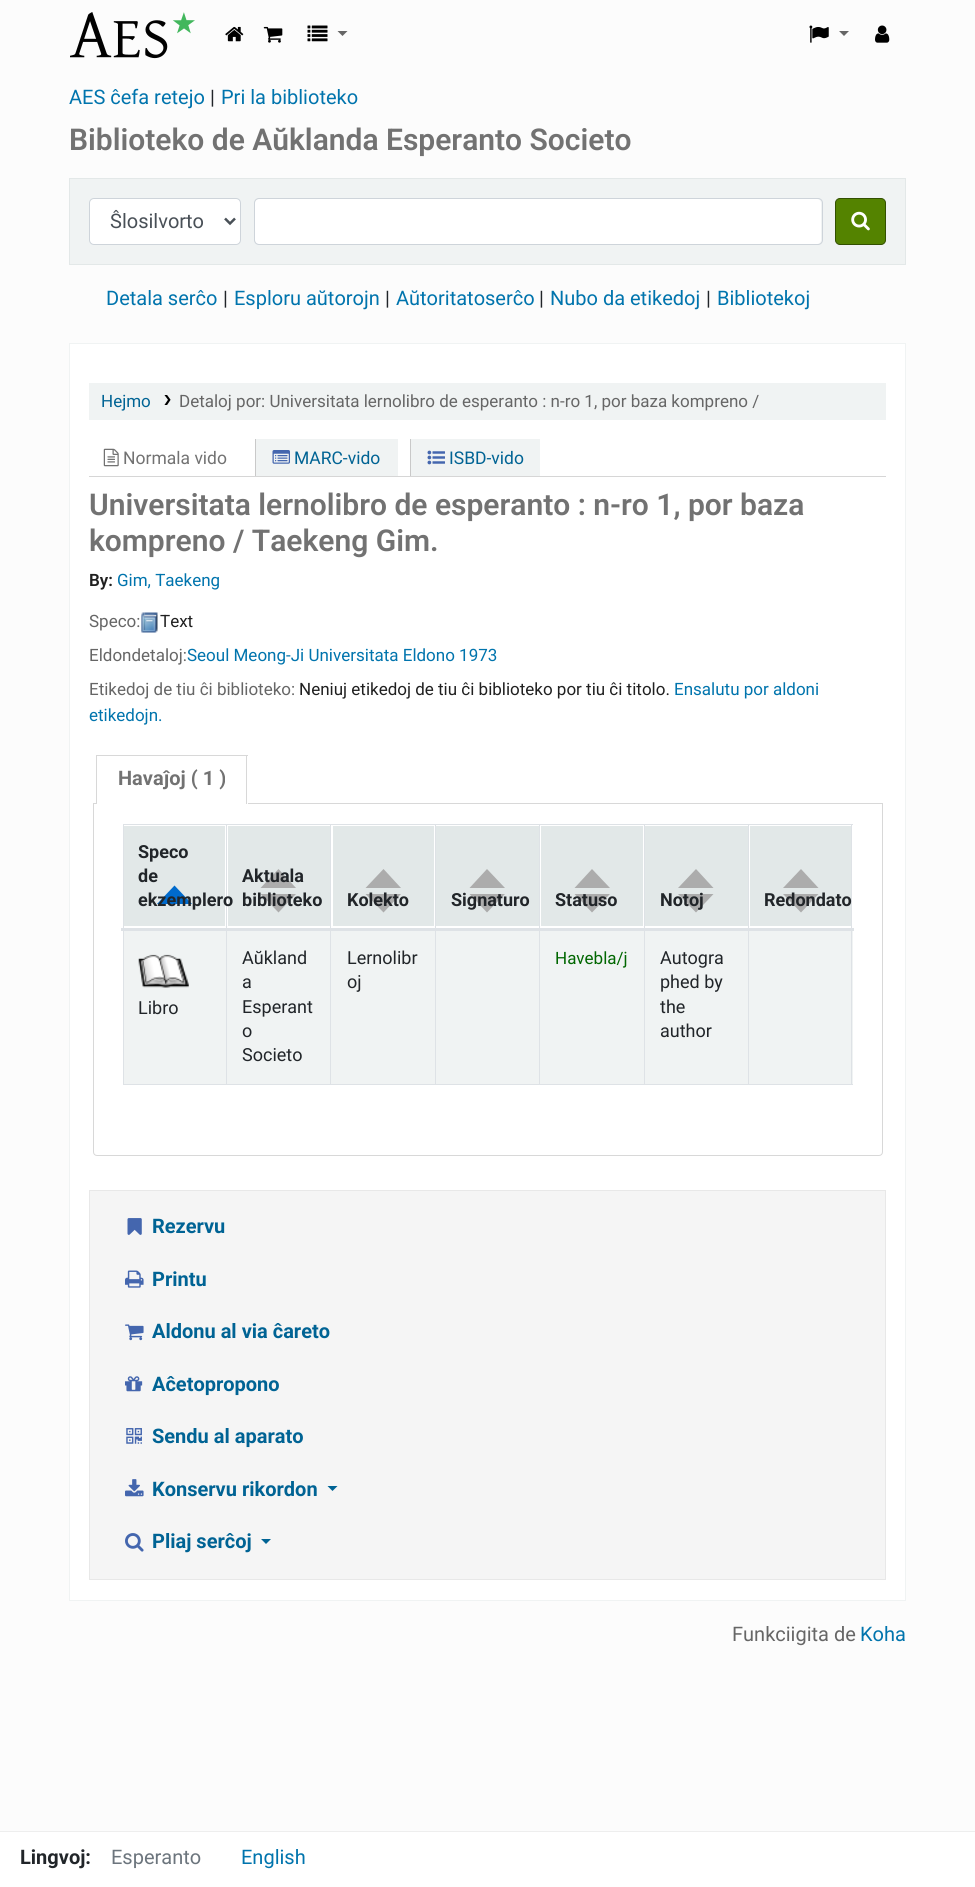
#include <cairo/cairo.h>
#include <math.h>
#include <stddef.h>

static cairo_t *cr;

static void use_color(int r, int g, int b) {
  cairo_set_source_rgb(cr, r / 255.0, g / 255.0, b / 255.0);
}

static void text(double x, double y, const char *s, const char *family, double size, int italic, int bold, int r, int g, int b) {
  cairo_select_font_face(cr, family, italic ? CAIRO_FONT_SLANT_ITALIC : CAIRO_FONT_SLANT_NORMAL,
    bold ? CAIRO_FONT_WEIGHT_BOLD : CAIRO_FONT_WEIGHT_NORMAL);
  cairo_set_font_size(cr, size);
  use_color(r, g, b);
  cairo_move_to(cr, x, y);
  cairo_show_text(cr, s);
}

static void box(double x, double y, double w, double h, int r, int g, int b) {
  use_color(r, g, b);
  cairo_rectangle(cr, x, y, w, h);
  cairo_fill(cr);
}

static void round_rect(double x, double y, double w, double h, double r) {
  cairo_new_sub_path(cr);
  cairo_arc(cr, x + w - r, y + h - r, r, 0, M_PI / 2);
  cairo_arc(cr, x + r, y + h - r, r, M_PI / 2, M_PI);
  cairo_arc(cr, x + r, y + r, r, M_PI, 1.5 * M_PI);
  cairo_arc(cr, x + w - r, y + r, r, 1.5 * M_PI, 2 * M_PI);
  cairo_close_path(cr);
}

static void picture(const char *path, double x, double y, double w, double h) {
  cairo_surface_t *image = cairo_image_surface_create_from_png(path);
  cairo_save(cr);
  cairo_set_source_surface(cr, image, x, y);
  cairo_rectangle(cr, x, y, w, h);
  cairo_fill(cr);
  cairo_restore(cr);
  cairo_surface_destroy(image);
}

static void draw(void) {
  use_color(252, 252, 252);
  cairo_paint(cr);
  picture("img_01.png", 70, 12, 125, 47);
  picture("img_02.png", 225, 26, 19, 16);
  picture("img_03.png", 263, 26, 20, 17);
  picture("img_04.png", 307, 25, 21, 17);
  use_color(102, 102, 102);
  cairo_new_path(cr);
  cairo_move_to(cr, 337.5, 31);
  cairo_line_to(cr, 347.5, 31);
  cairo_line_to(cr, 342.5, 36);
  cairo_close_path(cr);
  cairo_fill(cr);
  picture("img_05.png", 809, 25, 20, 18);
  cairo_new_path(cr);
  cairo_move_to(cr, 839, 31);
  cairo_line_to(cr, 849, 31);
  cairo_line_to(cr, 844, 36);
  cairo_close_path(cr);
  cairo_fill(cr);
  picture("img_06.png", 875, 25, 15, 18);
  use_color(240, 243, 243);
  cairo_rectangle(cr, 69.5, 178.5, 836, 86);
  cairo_fill_preserve(cr);
  use_color(227, 232, 232);
  cairo_set_line_width(cr, 1);
  cairo_stroke(cr);
  use_color(255, 255, 255);
  round_rect(89.5, 198.5, 151, 46, 4.5);
  cairo_fill_preserve(cr);
  use_color(206, 212, 218);
  cairo_stroke(cr);
  cairo_new_path(cr);
  cairo_move_to(cr, 225, 218.5);
  cairo_line_to(cr, 230, 223.5);
  cairo_line_to(cr, 235, 218.5);
  use_color(73, 80, 87);
  cairo_set_line_width(cr, 2.5);
  cairo_stroke(cr);
  use_color(255, 255, 255);
  round_rect(255, 199, 566, 45, 4);
  cairo_fill(cr);
  round_rect(254.5, 198.5, 568, 46, 4.5);
  use_color(206, 212, 218);
  cairo_set_line_width(cr, 1);
  cairo_stroke(cr);
  use_color(84, 131, 0);
  round_rect(835.5, 198.5, 50, 46, 4.5);
  cairo_fill_preserve(cr);
  use_color(51, 80, 0);
  cairo_stroke(cr);
  picture("img_07.png", 851, 211, 19, 20);
  use_color(255, 255, 255);
  cairo_rectangle(cr, 69.5, 343.5, 836, 1257);
  cairo_fill_preserve(cr);
  use_color(240, 243, 243);
  cairo_stroke(cr);
  box(89, 383, 797, 37, 240, 243, 243);
  picture("img_08.png", 164, 395, 7, 10);
  box(89, 476, 797, 1, 214, 214, 214);
  picture("img_09.png", 103, 448, 16, 19);
  box(256, 439, 142, 37, 240, 243, 243);
  box(255, 439, 1, 37, 201, 201, 201);
  picture("img_10.png", 272, 450, 18, 14);
  box(411, 439, 129, 37, 240, 243, 243);
  box(410, 439, 1, 37, 201, 201, 201);
  picture("img_11.png", 427, 450, 18, 15);
  picture("img_12.png", 141, 612, 17, 21);
  cairo_new_path(cr);
  cairo_move_to(cr, 93.5, 803.5);
  cairo_line_to(cr, 882.5, 803.5);
  cairo_line_to(cr, 882.5, 1152);
  cairo_curve_to(cr, 882.5, 1154, 881, 1155.5, 879, 1155.5);
  cairo_line_to(cr, 97, 1155.5);
  cairo_curve_to(cr, 95, 1155.5, 93.5, 1154, 93.5, 1152);
  cairo_close_path(cr);
  use_color(216, 216, 216);
  cairo_stroke(cr);
  box(97, 803, 151, 1, 255, 255, 255);
  box(96, 755, 152, 1, 216, 216, 216);
  box(246, 755, 1, 49, 216, 216, 216);
  box(96, 755, 1, 49, 216, 216, 216);
  box(123, 824, 730, 1, 222, 226, 230);
  box(749, 931, 104, 153, 240, 243, 243);
  box(851, 824, 1, 261, 222, 226, 230);
  box(123, 1084, 730, 1, 222, 226, 230);
  box(123, 824, 1, 261, 222, 226, 230);
  box(124, 826, 101, 100, 226, 232, 232);
  use_color(0, 106, 204);
  cairo_new_path(cr);
  cairo_move_to(cr, 192, 904);
  cairo_line_to(cr, 157, 904);
  cairo_line_to(cr, 174.5, 885.5);
  cairo_close_path(cr);
  cairo_fill(cr);
  box(228, 826, 102, 100, 226, 232, 232);
  use_color(172, 172, 172);
  cairo_new_path(cr);
  cairo_move_to(cr, 296, 894);
  cairo_line_to(cr, 260.5, 894);
  cairo_line_to(cr, 278.5, 912.5);
  cairo_close_path(cr);
  cairo_move_to(cr, 296, 888);
  cairo_line_to(cr, 260.5, 888);
  cairo_line_to(cr, 278.5, 869);
  cairo_close_path(cr);
  cairo_fill(cr);
  box(333, 826, 101, 100, 226, 232, 232);
  use_color(172, 172, 172);
  cairo_new_path(cr);
  cairo_move_to(cr, 401, 894);
  cairo_line_to(cr, 365.5, 894);
  cairo_line_to(cr, 383.5, 912.5);
  cairo_close_path(cr);
  cairo_move_to(cr, 401, 888);
  cairo_line_to(cr, 365.5, 888);
  cairo_line_to(cr, 383.5, 869);
  cairo_close_path(cr);
  cairo_fill(cr);
  box(436, 826, 103, 100, 226, 232, 232);
  use_color(172, 172, 172);
  cairo_new_path(cr);
  cairo_move_to(cr, 505, 894);
  cairo_line_to(cr, 469.5, 894);
  cairo_line_to(cr, 487, 912.5);
  cairo_close_path(cr);
  cairo_move_to(cr, 505, 888);
  cairo_line_to(cr, 469.5, 888);
  cairo_line_to(cr, 487, 869);
  cairo_close_path(cr);
  cairo_fill(cr);
  box(541, 826, 102, 100, 226, 232, 232);
  use_color(172, 172, 172);
  cairo_new_path(cr);
  cairo_move_to(cr, 610, 894);
  cairo_line_to(cr, 574.5, 894);
  cairo_line_to(cr, 592, 912.5);
  cairo_close_path(cr);
  cairo_move_to(cr, 610, 888);
  cairo_line_to(cr, 574.5, 888);
  cairo_line_to(cr, 592, 869);
  cairo_close_path(cr);
  cairo_fill(cr);
  box(645, 826, 103, 100, 226, 232, 232);
  use_color(172, 172, 172);
  cairo_new_path(cr);
  cairo_move_to(cr, 713.5, 894);
  cairo_line_to(cr, 678, 894);
  cairo_line_to(cr, 696, 912.5);
  cairo_close_path(cr);
  cairo_move_to(cr, 713.5, 888);
  cairo_line_to(cr, 678, 888);
  cairo_line_to(cr, 696, 869);
  cairo_close_path(cr);
  cairo_fill(cr);
  box(750, 826, 101, 100, 226, 232, 232);
  use_color(172, 172, 172);
  cairo_new_path(cr);
  cairo_move_to(cr, 818.5, 894);
  cairo_line_to(cr, 783, 894);
  cairo_line_to(cr, 801, 912.5);
  cairo_close_path(cr);
  cairo_move_to(cr, 818.5, 888);
  cairo_line_to(cr, 783, 888);
  cairo_line_to(cr, 801, 869);
  cairo_close_path(cr);
  cairo_fill(cr);
  box(226, 824, 1, 261, 222, 226, 230);
  box(330, 824, 1, 261, 222, 226, 230);
  box(435, 824, 1, 261, 222, 226, 230);
  box(539, 824, 1, 261, 222, 226, 230);
  box(644, 824, 1, 261, 222, 226, 230);
  box(748, 824, 1, 261, 222, 226, 230);
  box(121, 928, 733, 3, 222, 226, 230);
  box(124, 931, 102, 153, 240, 243, 243);
  picture("img_13.png", 138, 954, 51, 34);
  box(227, 931, 103, 153, 240, 243, 243);
  box(331, 931, 104, 153, 240, 243, 243);
  box(436, 931, 103, 153, 240, 243, 243);
  box(540, 931, 104, 153, 240, 243, 243);
  box(645, 931, 103, 153, 240, 243, 243);
  use_color(245, 245, 245);
  cairo_rectangle(cr, 89.5, 1190.5, 796, 389);
  cairo_fill_preserve(cr);
  use_color(232, 232, 232);
  cairo_stroke(cr);
  picture("img_14.png", 127, 1218, 15, 17);
  picture("img_15.png", 125, 1270, 19, 18);
  picture("img_16.png", 125, 1324, 19, 17);
  picture("img_17.png", 125, 1376, 18, 16);
  picture("img_18.png", 126, 1428, 16, 16);
  picture("img_19.png", 125, 1479, 19, 18);
  use_color(0, 99, 148);
  cairo_new_path(cr);
  cairo_move_to(cr, 327.5, 1486);
  cairo_line_to(cr, 337.5, 1486);
  cairo_line_to(cr, 332.5, 1491);
  cairo_close_path(cr);
  cairo_fill(cr);
  picture("img_20.png", 125, 1533, 19, 19);
  cairo_new_path(cr);
  cairo_move_to(cr, 261, 1539);
  cairo_line_to(cr, 271, 1539);
  cairo_line_to(cr, 266, 1544);
  cairo_close_path(cr);
  cairo_fill(cr);
  box(0, 1832, 975, 55, 255, 255, 255);
  box(0, 1831, 975, 1, 238, 238, 238);
  text(69, 104, "AES ĉefa retejo", "Roboto", 20, 0, 0, 0, 116, 173);
  text(210, 104, "|", "Roboto", 20, 0, 0, 33, 37, 41);
  text(221, 104, "Pri la biblioteko", "Roboto", 20, 0, 0, 0, 116, 173);
  text(69, 150, "Biblioteko de Aŭklanda Esperanto Societo", "Roboto SemiBold", 30, 0, 0, 114, 114, 114);
  text(110, 228, "Ŝlosilvorto", "Roboto", 20, 0, 0, 73, 80, 87);
  text(106, 305, "Detala serĉo", "Roboto", 20, 0, 0, 0, 116, 173);
  text(223, 305, "|", "Roboto", 20, 0, 0, 33, 37, 41);
  text(234, 305, "Esploru aŭtorojn", "Roboto", 20, 0, 0, 0, 116, 173);
  text(385, 305, "|", "Roboto", 20, 0, 0, 33, 37, 41);
  text(396, 305, "Aŭtoritatoserĉo", "Roboto", 20, 0, 0, 0, 116, 173);
  text(539, 305, "|", "Roboto", 20, 0, 0, 33, 37, 41);
  text(550, 305, "Nubo da etikedoj", "Roboto", 20, 0, 0, 0, 116, 173);
  text(706, 305, "|", "Roboto", 20, 0, 0, 33, 37, 41);
  text(717, 305, "Bibliotekoj", "Roboto", 20, 0, 0, 0, 116, 173);
  text(101, 407, "Hejmo", "Roboto", 17, 0, 0, 0, 99, 148);
  text(179, 407, "Detaloj por: Universitata lernolibro de esperanto : n-ro 1, por baza kompreno /", "Roboto", 17, 0, 0, 102, 102, 102);
  text(123, 464, "Normala vido", "Roboto", 17.5, 0, 0, 114, 114, 114);
  text(294, 464, "MARC-vido", "Roboto", 17.5, 0, 0, 0, 99, 148);
  text(449, 464, "ISBD-vido", "Roboto", 17.5, 0, 0, 0, 99, 148);
  text(89, 515, "Universitata lernolibro de esperanto : n-ro 1, por baza", "Roboto SemiBold", 30, 0, 0, 114, 114, 114);
  text(89, 551, "kompreno / Taekeng Gim.", "Roboto SemiBold", 30, 0, 0, 114, 114, 114);
  text(89, 586, "By:", "Roboto SemiBold", 17, 0, 0, 32, 32, 32);
  text(117, 586, "Gim, Taekeng", "Roboto", 17, 0, 0, 0, 116, 173);
  text(89, 627, "Speco:", "Roboto", 17, 0, 0, 102, 102, 102);
  text(160, 627, "Text", "Roboto", 17, 0, 0, 32, 32, 32);
  text(89, 661, "Eldondetaloj:", "Roboto", 17, 0, 0, 102, 102, 102);
  text(187, 661, "Seoul Meong-Ji Universitata Eldono 1973", "Roboto", 17, 0, 0, 0, 116, 173);
  text(89, 695, "Etikedoj de tiu ĉi biblioteko:", "Roboto", 17, 0, 0, 102, 102, 102);
  text(299, 695, "Neniuj etikedoj de tiu ĉi biblioteko por tiu ĉi titolo.", "Roboto", 17, 0, 0, 32, 32, 32);
  text(674, 695, "Ensalutu por aldoni", "Roboto", 17, 0, 0, 0, 116, 173);
  text(89, 721, "etikedojn.", "Roboto", 17, 0, 0, 0, 116, 173);
  text(118, 785, "Havaĵoj ( 1 )", "Roboto", 20, 0, 1, 114, 114, 114);
  text(138, 858, "Speco", "Roboto", 18, 0, 1, 33, 37, 41);
  text(138, 882, "de", "Roboto", 18, 0, 1, 33, 37, 41);
  text(138, 906, "ekzemplero", "Roboto", 18, 0, 1, 33, 37, 41);
  text(242, 882, "Aktuala", "Roboto", 18, 0, 1, 33, 37, 41);
  text(242, 906, "biblioteko", "Roboto", 18, 0, 1, 33, 37, 41);
  text(347, 906, "Kolekto", "Roboto", 18, 0, 1, 33, 37, 41);
  text(451, 906, "Signaturo", "Roboto", 18, 0, 1, 33, 37, 41);
  text(555, 906, "Statuso", "Roboto", 18, 0, 1, 33, 37, 41);
  text(660, 906, "Notoj", "Roboto", 18, 0, 1, 33, 37, 41);
  text(764, 906, "Redondato", "Roboto", 18, 0, 1, 33, 37, 41);
  text(138, 1014, "Libro", "Roboto", 18, 0, 0, 33, 37, 41);
  text(242, 964, "Aŭkland", "Roboto", 18, 0, 0, 33, 37, 41);
  text(242, 988, "a", "Roboto", 18, 0, 0, 33, 37, 41);
  text(242, 1013, "Esperant", "Roboto", 18, 0, 0, 33, 37, 41);
  text(242, 1037, "o", "Roboto", 18, 0, 0, 33, 37, 41);
  text(242, 1061, "Societo", "Roboto", 18, 0, 0, 33, 37, 41);
  text(347, 964, "Lernolibr", "Roboto", 18, 0, 0, 33, 37, 41);
  text(347, 988, "oj", "Roboto", 18, 0, 0, 33, 37, 41);
  text(555, 964, "Havebla/j", "Roboto", 17, 0, 0, 0, 102, 0);
  text(660, 964, "Autogra", "Roboto", 18, 0, 0, 33, 37, 41);
  text(660, 988, "phed by", "Roboto", 18, 0, 0, 33, 37, 41);
  text(660, 1013, "the", "Roboto", 18, 0, 0, 33, 37, 41);
  text(660, 1037, "author", "Roboto", 18, 0, 0, 33, 37, 41);
  text(152, 1233, "Rezervu", "Roboto", 20, 0, 1, 0, 99, 148);
  text(152, 1286, "Printu", "Roboto", 20, 0, 1, 0, 99, 148);
  text(152, 1338, "Aldonu al via ĉareto", "Roboto", 20, 0, 1, 0, 99, 148);
  text(152, 1391, "Aĉetopropono", "Roboto", 20, 0, 1, 0, 99, 148);
  text(152, 1443, "Sendu al aparato", "Roboto", 20, 0, 1, 0, 99, 148);
  text(152, 1496, "Konservu rikordon", "Roboto", 20, 0, 1, 0, 99, 148);
  text(152, 1548, "Pliaj serĉoj", "Roboto", 20, 0, 1, 0, 99, 148);
  text(732, 1641, "Funkciigita de", "Roboto", 20, 0, 0, 102, 102, 102);
  text(860, 1641, "Koha", "Roboto", 20, 0, 0, 0, 116, 173);
  text(20, 1864, "Lingvoj:", "Roboto", 20, 0, 1, 33, 37, 41);
  text(111, 1864, "Esperanto", "Roboto", 20, 0, 0, 108, 117, 125);
  text(241, 1864, "English", "Roboto", 20, 0, 0, 0, 116, 173);
}

int main(void) {
  cairo_surface_t *surface = cairo_image_surface_create(CAIRO_FORMAT_RGB24, 975, 1887);
  cr = cairo_create(surface);
  cairo_font_options_t *options = cairo_font_options_create();
  cairo_font_options_set_hint_metrics(options, CAIRO_HINT_METRICS_OFF);
  cairo_font_options_set_hint_style(options, CAIRO_HINT_STYLE_NONE);
  cairo_set_font_options(cr, options);
  cairo_set_miter_limit(cr, 4);
  draw();
  cairo_surface_write_to_png(surface, "out.png");
  cairo_font_options_destroy(options);
  cairo_destroy(cr);
  cairo_surface_destroy(surface);
  return 0;
}
